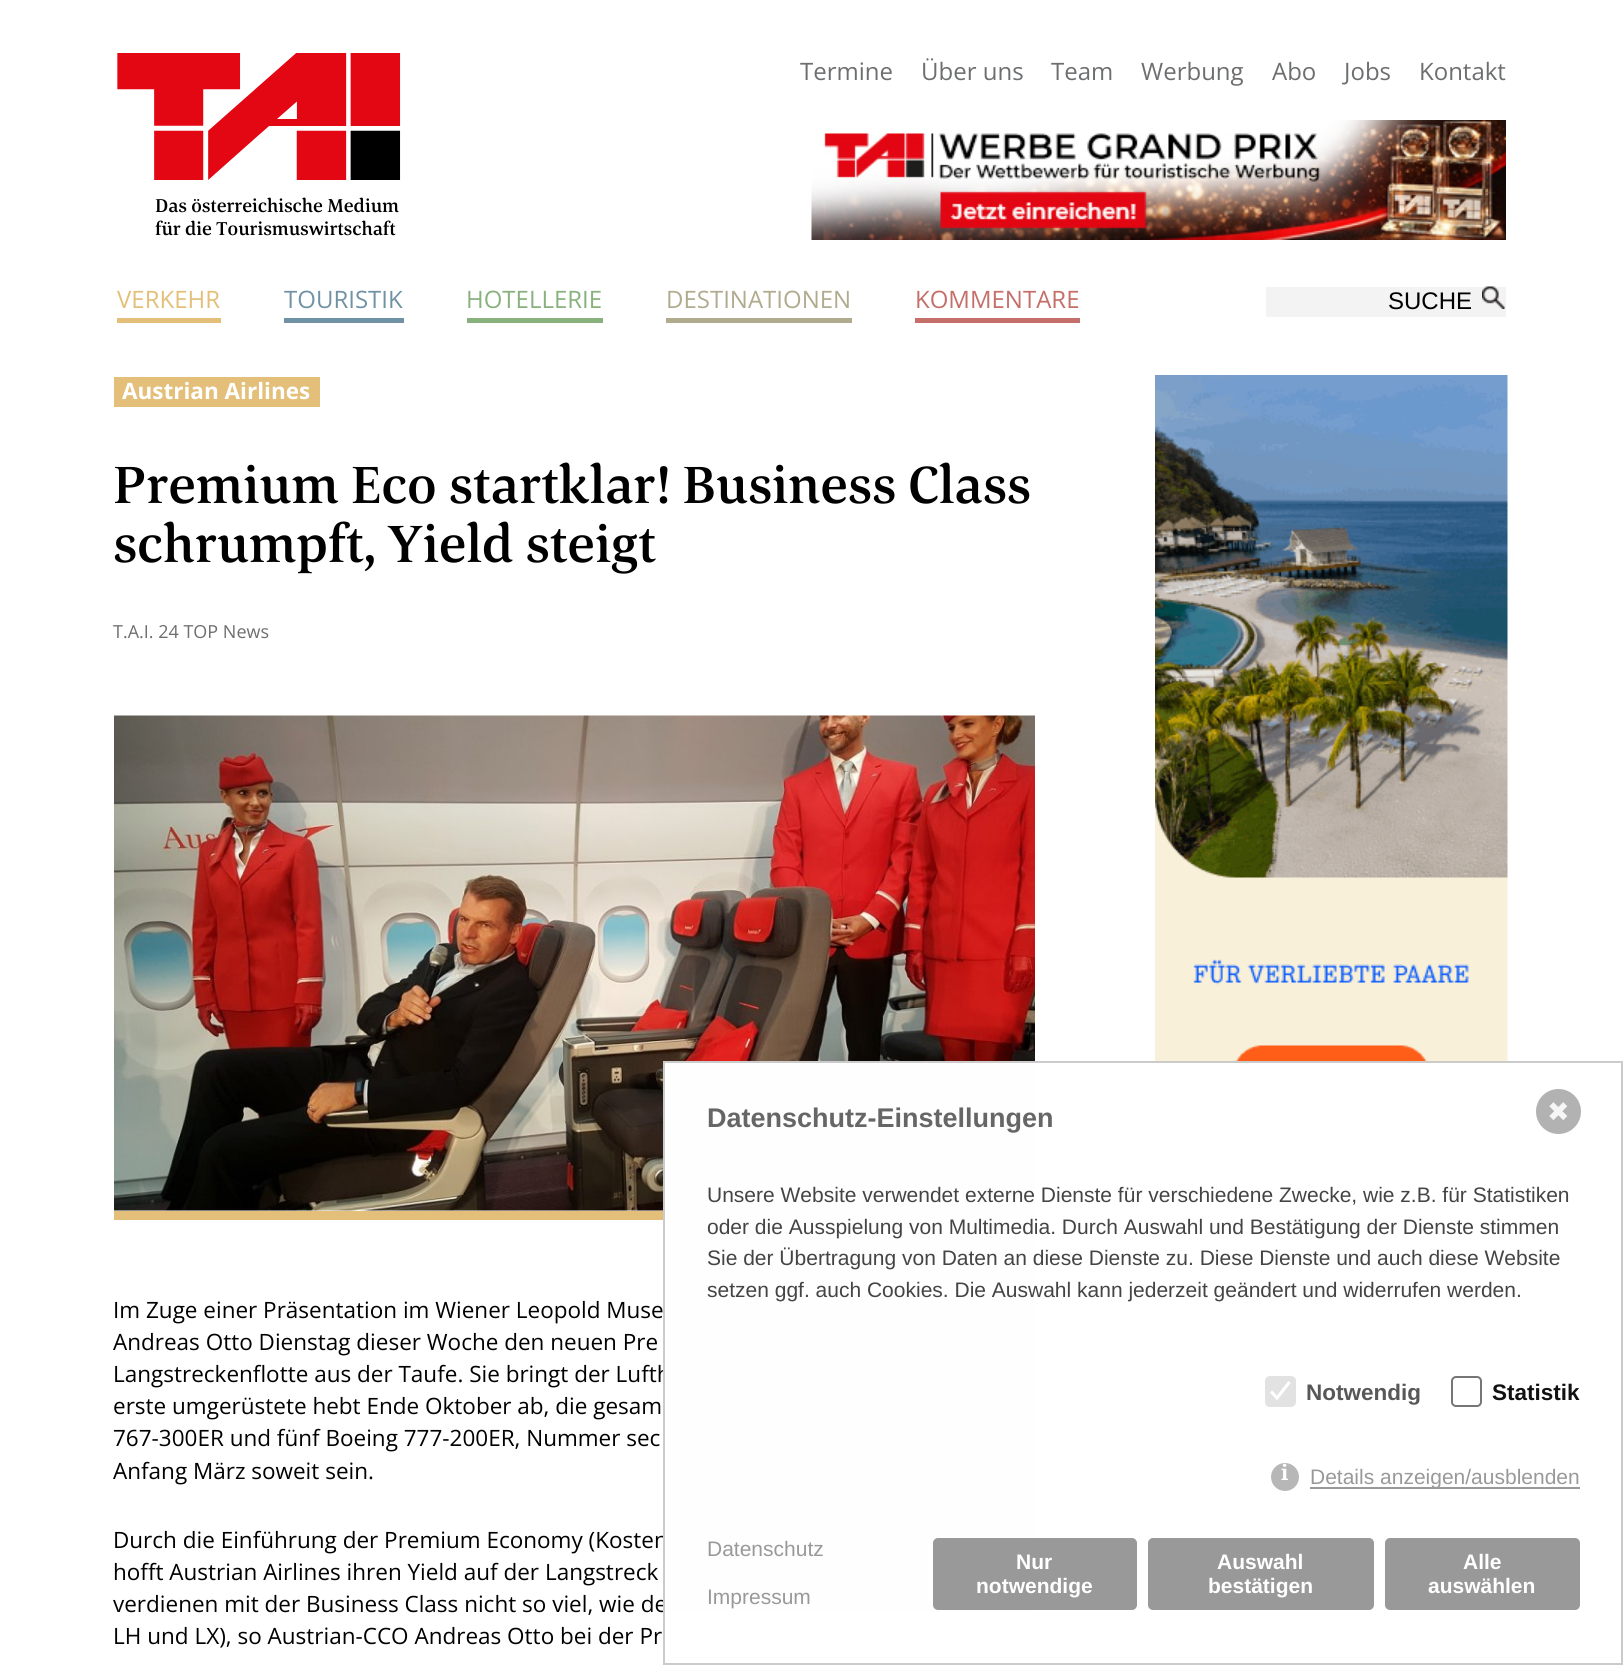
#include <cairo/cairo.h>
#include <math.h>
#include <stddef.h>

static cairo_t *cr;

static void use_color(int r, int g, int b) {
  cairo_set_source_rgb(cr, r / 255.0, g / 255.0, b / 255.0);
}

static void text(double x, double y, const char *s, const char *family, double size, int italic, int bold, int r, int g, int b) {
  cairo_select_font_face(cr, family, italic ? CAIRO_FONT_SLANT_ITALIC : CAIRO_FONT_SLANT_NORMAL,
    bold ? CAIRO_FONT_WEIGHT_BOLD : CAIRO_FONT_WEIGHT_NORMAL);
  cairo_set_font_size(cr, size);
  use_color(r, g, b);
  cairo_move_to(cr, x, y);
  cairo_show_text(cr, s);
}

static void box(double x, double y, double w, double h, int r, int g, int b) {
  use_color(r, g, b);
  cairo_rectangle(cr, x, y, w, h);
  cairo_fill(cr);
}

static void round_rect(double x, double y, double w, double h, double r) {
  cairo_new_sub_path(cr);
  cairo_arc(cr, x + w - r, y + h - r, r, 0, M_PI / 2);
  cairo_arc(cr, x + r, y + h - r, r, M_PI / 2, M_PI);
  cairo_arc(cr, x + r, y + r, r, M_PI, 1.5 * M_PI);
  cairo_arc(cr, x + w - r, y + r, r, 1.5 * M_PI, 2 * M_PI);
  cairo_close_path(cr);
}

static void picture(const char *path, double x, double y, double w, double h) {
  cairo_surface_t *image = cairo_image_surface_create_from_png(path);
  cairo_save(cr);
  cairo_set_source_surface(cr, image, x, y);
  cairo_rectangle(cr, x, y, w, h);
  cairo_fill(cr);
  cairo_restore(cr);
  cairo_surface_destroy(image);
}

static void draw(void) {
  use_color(255, 255, 255);
  cairo_paint(cr);
  picture("img_01.png", 811, 120, 695, 120);
  box(117, 318, 104, 5, 227, 191, 122);
  box(284, 318, 120, 5, 112, 146, 164);
  box(467, 318, 136, 5, 136, 177, 125);
  box(666, 318, 186, 5, 176, 170, 142);
  box(915, 318, 165, 5, 196, 111, 106);
  box(1266, 287, 240, 30, 243, 243, 243);
  picture("img_02.png", 1482, 286, 23, 23);
  picture("img_03.png", 117, 53, 284, 127);
  box(114, 377, 206, 30, 227, 191, 122);
  picture("img_04.png", 114, 715, 921, 496);
  box(114, 1211, 549, 9, 227, 191, 122);
  picture("img_05.png", 1155, 375, 353, 686);
  text(800, 80, "Termine", "Open Sans", 24, 0, 0, 109, 110, 112);
  text(921, 80, "Über uns", "Open Sans", 24, 0, 0, 109, 110, 112);
  text(1051, 80, "Team", "Open Sans", 24, 0, 0, 109, 110, 112);
  text(1141, 80, "Werbung", "Open Sans", 24, 0, 0, 109, 110, 112);
  text(1272, 80, "Abo", "Open Sans", 24, 0, 0, 109, 110, 112);
  text(1344, 80, "Jobs", "Open Sans", 24, 0, 0, 109, 110, 112);
  text(1419, 80, "Kontakt", "Open Sans", 24, 0, 0, 109, 110, 112);
  text(117, 308, "VERKEHR", "Open Sans", 24, 0, 0, 227, 191, 122);
  text(284, 308, "TOURISTIK", "Open Sans", 24, 0, 0, 112, 146, 164);
  text(466, 308, "HOTELLERIE", "Open Sans", 24, 0, 0, 136, 177, 125);
  text(666, 308, "DESTINATIONEN", "Open Sans", 24, 0, 0, 176, 170, 142);
  text(915, 308, "KOMMENTARE", "Open Sans", 24, 0, 0, 196, 111, 106);
  text(1388, 309, "SUCHE", "Liberation Sans", 24, 0, 0, 0, 0, 0);
  text(155, 212, "Das österreichische Medium", "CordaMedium", 19.25, 0, 0, 0, 0, 0);
  text(155, 235, "für die Tourismuswirtschaft", "CordaMedium", 19.25, 0, 0, 0, 0, 0);
  text(122, 399, "Austrian Airlines", "Open Sans", 22.5, 0, 1, 255, 255, 255);
  text(113, 503, "Premium Eco startklar! Business Class", "CordaMedium", 54, 0, 0, 0, 0, 0);
  text(113, 562, "schrumpft, Yield steigt", "CordaMedium", 54, 0, 0, 0, 0, 0);
  text(113, 638, "T.A.I. 24 TOP News", "Open Sans", 18, 0, 0, 109, 110, 112);
  text(113, 1318, "Im Zuge einer Präsentation im Wiener Leopold Muse", "Open Sans", 22.5, 0, 0, 0, 0, 0);
  text(113, 1350, "Andreas Otto Dienstag dieser Woche den neuen Pre", "Open Sans", 22.5, 0, 0, 0, 0, 0);
  text(113, 1382, "Langstreckenflotte aus der Taufe. Sie bringt der Lufth", "Open Sans", 22.5, 0, 0, 0, 0, 0);
  text(113, 1414, "erste umgerüstete hebt Ende Oktober ab, die gesam", "Open Sans", 22.5, 0, 0, 0, 0, 0);
  text(113, 1446, "767-300ER und fünf Boeing 777-200ER, Nummer sec", "Open Sans", 22.5, 0, 0, 0, 0, 0);
  text(113, 1479, "Anfang März soweit sein.", "Open Sans", 22.5, 0, 0, 0, 0, 0);
  text(113, 1548, "Durch die Einführung der Premium Economy (Kosten", "Open Sans", 22.5, 0, 0, 0, 0, 0);
  text(113, 1580, "hofft Austrian Airlines ihren Yield auf der Langstreck", "Open Sans", 22.5, 0, 0, 0, 0, 0);
  text(113, 1612, "verdienen mit der Business Class nicht so viel, wie de", "Open Sans", 22.5, 0, 0, 0, 0, 0);
  text(113, 1644, "LH und LX), so Austrian-CCO Andreas Otto bei der Pr", "Open Sans", 22.5, 0, 0, 0, 0, 0);
  box(665, 1063, 370, 549, 254, 254, 254);
  cairo_rectangle(cr, 664, 1062, 958, 602);
  use_color(203, 203, 203);
  cairo_stroke(cr);
  use_color(178, 178, 178);
  cairo_arc(cr, 1558.5, 1111.5, 21, 0, 2 * M_PI);
  cairo_fill_preserve(cr);
  cairo_set_line_width(cr, 3);
  cairo_stroke(cr);
  text(1547, 1121, "✖", "DejaVu Sans", 27, 0, 0, 246, 246, 246);
  text(707, 1127, "Datenschutz-Einstellungen", "Liberation Sans", 27, 0, 1, 102, 102, 102);
  text(707, 1202, "Unsere Website verwendet externe Dienste für verschiedene Zwecke, wie z.B. für Statistiken", "Liberation Sans", 21, 0, 0, 68, 68, 68);
  text(707, 1234, "oder die Ausspielung von Multimedia. Durch Auswahl und Bestätigung der Dienste stimmen", "Liberation Sans", 21, 0, 0, 68, 68, 68);
  text(707, 1265, "Sie der Übertragung von Daten an diese Dienste zu. Diese Dienste und auch diese Website", "Liberation Sans", 21, 0, 0, 68, 68, 68);
  text(707, 1297, "setzen ggf. auch Cookies. Die Auswahl kann jederzeit geändert und widerrufen werden.", "Liberation Sans", 21, 0, 0, 68, 68, 68);
  use_color(226, 226, 226);
  round_rect(1265, 1376, 31, 31, 5);
  cairo_fill(cr);
  cairo_new_path(cr);
  cairo_move_to(cr, 1271, 1391.5);
  cairo_line_to(cr, 1277, 1398);
  cairo_line_to(cr, 1289.5, 1382);
  use_color(255, 255, 255);
  cairo_set_line_width(cr, 3.1);
  cairo_stroke(cr);
  text(1306, 1400, "Notwendig", "Liberation Sans", 22.5, 0, 1, 88, 88, 88);
  round_rect(1452, 1377, 29, 29, 4);
  use_color(118, 118, 118);
  cairo_set_line_width(cr, 2);
  cairo_stroke(cr);
  text(1492, 1400, "Statistik", "Liberation Sans", 22.5, 0, 1, 17, 17, 17);
  use_color(183, 183, 183);
  cairo_new_path(cr);
  cairo_arc(cr, 1285, 1477, 14, 0, 2 * M_PI);
  cairo_fill(cr);
  text(1281, 1480, "i", "Noto Serif", 21, 0, 1, 255, 255, 255);
  box(1310, 1487, 270, 2, 153, 153, 153);
  text(1310, 1484, "Details anzeigen/ausblenden", "Liberation Sans", 21, 0, 0, 153, 153, 153);
  text(707, 1556, "Datenschutz", "Liberation Sans", 21, 0, 0, 153, 153, 153);
  text(707, 1604, "Impressum", "Liberation Sans", 21, 0, 0, 153, 153, 153);
  round_rect(934, 1539, 202, 70, 4);
  cairo_fill_preserve(cr);
  cairo_stroke(cr);
  text(1016, 1569, "Nur", "Liberation Sans", 21, 0, 1, 255, 255, 255);
  text(976, 1593, "notwendige", "Liberation Sans", 21, 0, 1, 255, 255, 255);
  use_color(153, 153, 153);
  round_rect(1149, 1539, 224, 70, 4);
  cairo_fill_preserve(cr);
  cairo_stroke(cr);
  text(1217, 1569, "Auswahl", "Liberation Sans", 21, 0, 1, 255, 255, 255);
  text(1208, 1593, "bestätigen", "Liberation Sans", 21, 0, 1, 255, 255, 255);
  use_color(153, 153, 153);
  round_rect(1386, 1539, 193, 70, 4);
  cairo_fill_preserve(cr);
  cairo_stroke(cr);
  text(1463, 1569, "Alle", "Liberation Sans", 21, 0, 1, 255, 255, 255);
  text(1428, 1593, "auswählen", "Liberation Sans", 21, 0, 1, 255, 255, 255);
}

int main(void) {
  cairo_surface_t *surface = cairo_image_surface_create(CAIRO_FORMAT_RGB24, 1623, 1665);
  cr = cairo_create(surface);
  cairo_font_options_t *options = cairo_font_options_create();
  cairo_font_options_set_hint_metrics(options, CAIRO_HINT_METRICS_OFF);
  cairo_font_options_set_hint_style(options, CAIRO_HINT_STYLE_NONE);
  cairo_set_font_options(cr, options);
  cairo_set_miter_limit(cr, 4);
  draw();
  cairo_surface_write_to_png(surface, "out.png");
  cairo_font_options_destroy(options);
  cairo_destroy(cr);
  cairo_surface_destroy(surface);
  return 0;
}
